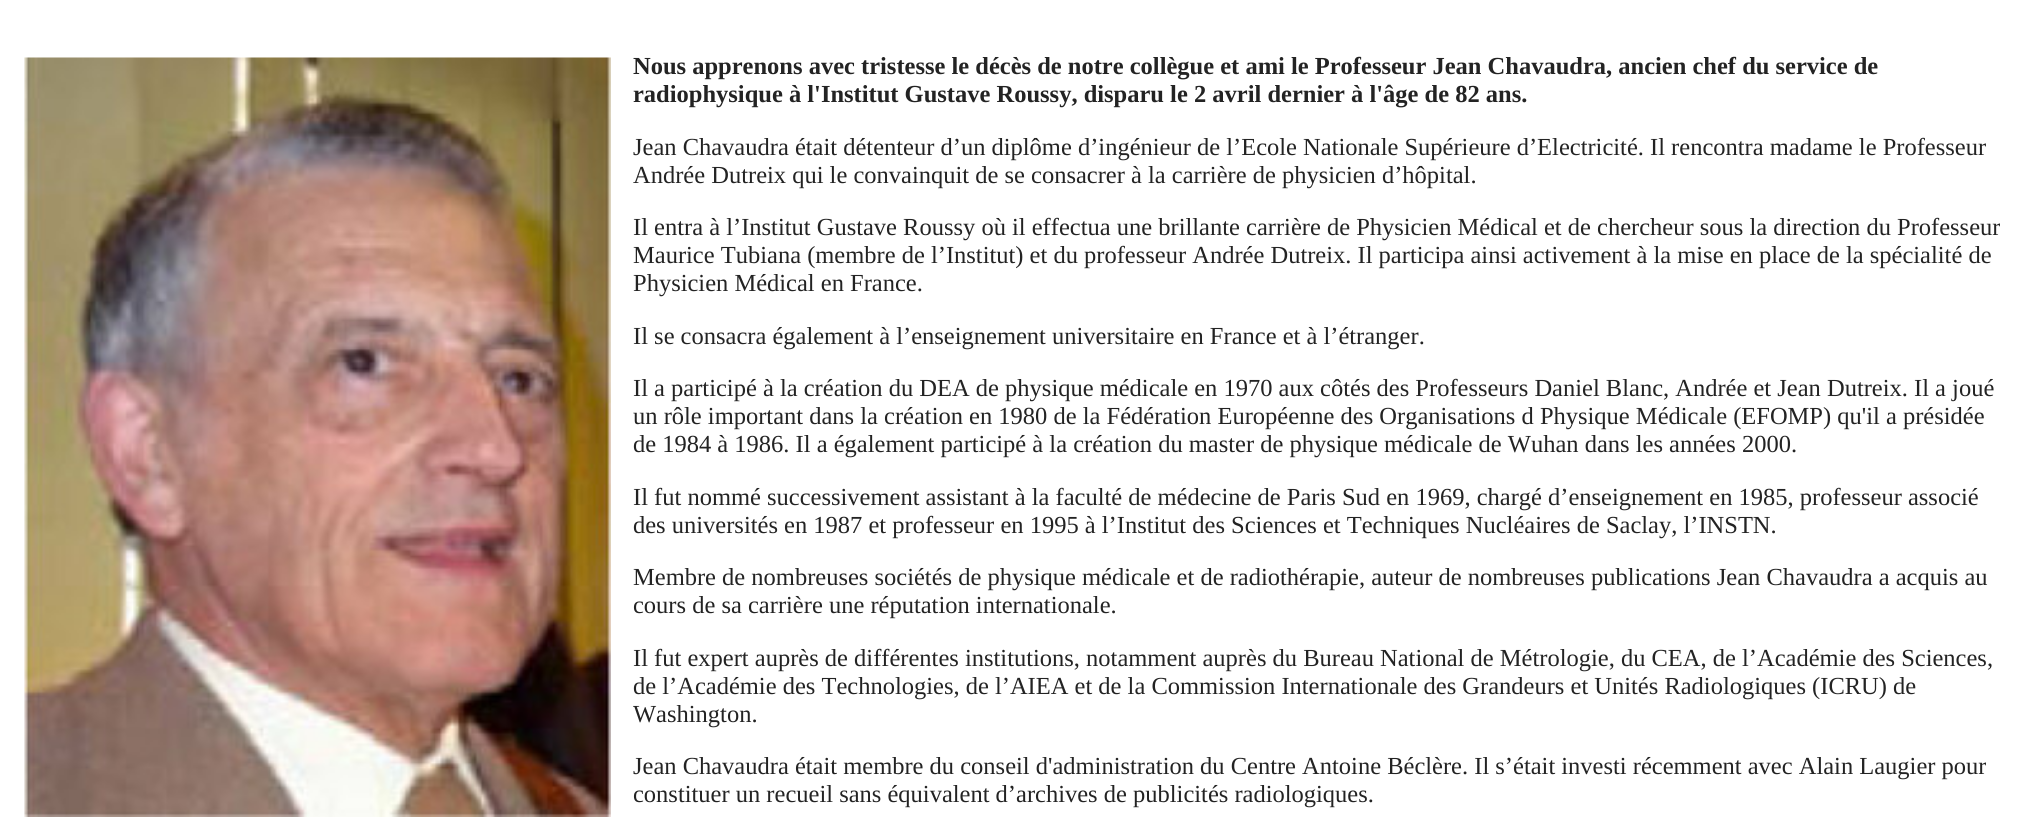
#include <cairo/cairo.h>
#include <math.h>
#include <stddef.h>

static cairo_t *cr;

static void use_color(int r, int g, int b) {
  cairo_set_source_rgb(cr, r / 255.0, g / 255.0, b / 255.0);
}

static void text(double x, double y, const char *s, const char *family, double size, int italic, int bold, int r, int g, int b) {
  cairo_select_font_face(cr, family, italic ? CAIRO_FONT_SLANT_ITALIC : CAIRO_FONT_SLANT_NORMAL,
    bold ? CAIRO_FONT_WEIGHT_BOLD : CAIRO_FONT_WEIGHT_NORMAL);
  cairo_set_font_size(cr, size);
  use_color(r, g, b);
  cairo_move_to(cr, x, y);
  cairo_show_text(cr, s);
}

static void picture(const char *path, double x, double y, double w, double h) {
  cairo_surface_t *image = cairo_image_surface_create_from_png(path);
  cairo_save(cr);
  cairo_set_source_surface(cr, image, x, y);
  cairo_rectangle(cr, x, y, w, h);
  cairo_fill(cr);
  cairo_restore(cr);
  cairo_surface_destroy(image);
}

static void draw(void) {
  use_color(255, 255, 255);
  cairo_paint(cr);
  picture("img_01.png", 24, 57, 587, 760);
  text(633, 74, "Nous apprenons avec tristesse le décès de notre collègue et ami le Professeur Jean Chavaudra, ancien chef du service de", "Liberation Serif", 24.5, 0, 1, 35, 35, 35);
  text(633, 102, "radiophysique à l'Institut Gustave Roussy, disparu le 2 avril dernier à l'âge de 82 ans.", "Liberation Serif", 24.5, 0, 1, 35, 35, 35);
  text(633, 155, "Jean Chavaudra était détenteur d’un diplôme d’ingénieur de l’Ecole Nationale Supérieure d’Electricité. Il rencontra madame le Professeur", "Liberation Serif", 24.5, 0, 0, 35, 35, 35);
  text(633, 183, "Andrée Dutreix qui le convainquit de se consacrer à la carrière de physicien d’hôpital.", "Liberation Serif", 24.5, 0, 0, 35, 35, 35);
  text(633, 235, "Il entra à l’Institut Gustave Roussy où il effectua une brillante carrière de Physicien Médical et de chercheur sous la direction du Professeur", "Liberation Serif", 24.5, 0, 0, 35, 35, 35);
  text(633, 263, "Maurice Tubiana (membre de l’Institut) et du professeur Andrée Dutreix. Il participa ainsi activement à la mise en place de la spécialité de", "Liberation Serif", 24.5, 0, 0, 35, 35, 35);
  text(633, 291, "Physicien Médical en France.", "Liberation Serif", 24.5, 0, 0, 35, 35, 35);
  text(633, 344, "Il se consacra également à l’enseignement universitaire en France et à l’étranger.", "Liberation Serif", 24.5, 0, 0, 35, 35, 35);
  text(633, 396, "Il a participé à la création du DEA de physique médicale en 1970 aux côtés des Professeurs Daniel Blanc, Andrée et Jean Dutreix. Il a joué", "Liberation Serif", 24.5, 0, 0, 35, 35, 35);
  text(633, 424, "un rôle important dans la création en 1980 de la Fédération Européenne des Organisations d Physique Médicale (EFOMP) qu'il a présidée", "Liberation Serif", 24.5, 0, 0, 35, 35, 35);
  text(633, 452, "de 1984 à 1986. Il a également participé à la création du master de physique médicale de Wuhan dans les années 2000.", "Liberation Serif", 24.5, 0, 0, 35, 35, 35);
  text(633, 505, "Il fut nommé successivement assistant à la faculté de médecine de Paris Sud en 1969, chargé d’enseignement en 1985, professeur associé", "Liberation Serif", 24.5, 0, 0, 35, 35, 35);
  text(633, 533, "des universités en 1987 et professeur en 1995 à l’Institut des Sciences et Techniques Nucléaires de Saclay, l’INSTN.", "Liberation Serif", 24.5, 0, 0, 35, 35, 35);
  text(633, 585, "Membre de nombreuses sociétés de physique médicale et de radiothérapie, auteur de nombreuses publications Jean Chavaudra a acquis au", "Liberation Serif", 24.5, 0, 0, 35, 35, 35);
  text(633, 613, "cours de sa carrière une réputation internationale.", "Liberation Serif", 24.5, 0, 0, 35, 35, 35);
  text(633, 666, "Il fut expert auprès de différentes institutions, notamment auprès du Bureau National de Métrologie, du CEA, de l’Académie des Sciences,", "Liberation Serif", 24.5, 0, 0, 35, 35, 35);
  text(633, 694, "de l’Académie des Technologies, de l’AIEA et de la Commission Internationale des Grandeurs et Unités Radiologiques (ICRU) de", "Liberation Serif", 24.5, 0, 0, 35, 35, 35);
  text(633, 722, "Washington.", "Liberation Serif", 24.5, 0, 0, 35, 35, 35);
  text(633, 774, "Jean Chavaudra était membre du conseil d'administration du Centre Antoine Béclère. Il s’était investi récemment avec Alain Laugier pour", "Liberation Serif", 24.5, 0, 0, 35, 35, 35);
  text(633, 802, "constituer un recueil sans équivalent d’archives de publicités radiologiques.", "Liberation Serif", 24.5, 0, 0, 35, 35, 35);
}

int main(void) {
  cairo_surface_t *surface = cairo_image_surface_create(CAIRO_FORMAT_RGB24, 2024, 831);
  cr = cairo_create(surface);
  cairo_font_options_t *options = cairo_font_options_create();
  cairo_font_options_set_hint_metrics(options, CAIRO_HINT_METRICS_OFF);
  cairo_font_options_set_hint_style(options, CAIRO_HINT_STYLE_NONE);
  cairo_set_font_options(cr, options);
  cairo_set_miter_limit(cr, 4);
  draw();
  cairo_surface_write_to_png(surface, "out.png");
  cairo_font_options_destroy(options);
  cairo_destroy(cr);
  cairo_surface_destroy(surface);
  return 0;
}
